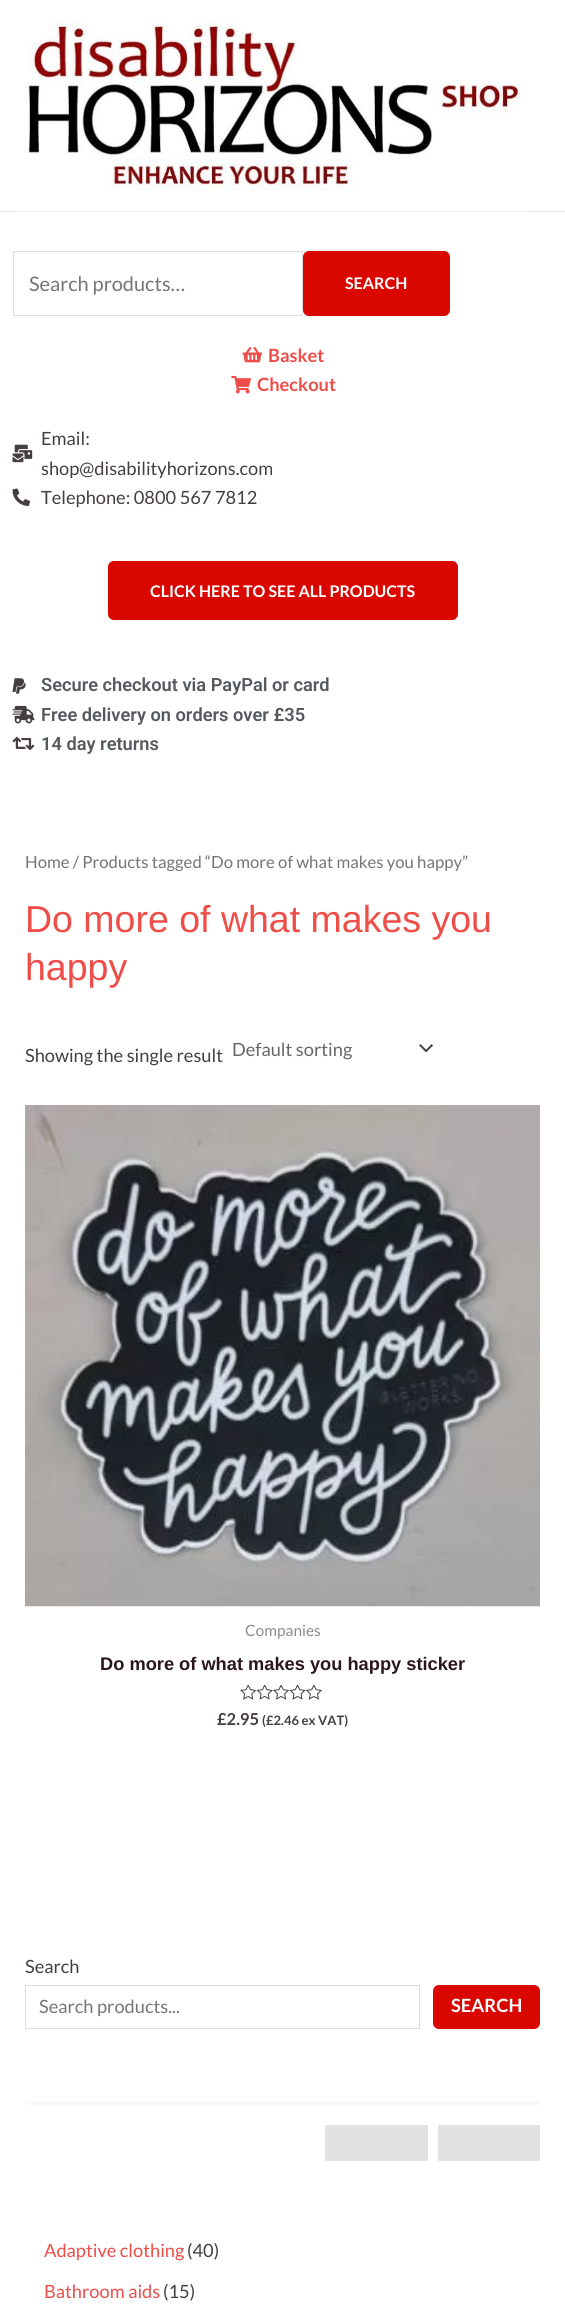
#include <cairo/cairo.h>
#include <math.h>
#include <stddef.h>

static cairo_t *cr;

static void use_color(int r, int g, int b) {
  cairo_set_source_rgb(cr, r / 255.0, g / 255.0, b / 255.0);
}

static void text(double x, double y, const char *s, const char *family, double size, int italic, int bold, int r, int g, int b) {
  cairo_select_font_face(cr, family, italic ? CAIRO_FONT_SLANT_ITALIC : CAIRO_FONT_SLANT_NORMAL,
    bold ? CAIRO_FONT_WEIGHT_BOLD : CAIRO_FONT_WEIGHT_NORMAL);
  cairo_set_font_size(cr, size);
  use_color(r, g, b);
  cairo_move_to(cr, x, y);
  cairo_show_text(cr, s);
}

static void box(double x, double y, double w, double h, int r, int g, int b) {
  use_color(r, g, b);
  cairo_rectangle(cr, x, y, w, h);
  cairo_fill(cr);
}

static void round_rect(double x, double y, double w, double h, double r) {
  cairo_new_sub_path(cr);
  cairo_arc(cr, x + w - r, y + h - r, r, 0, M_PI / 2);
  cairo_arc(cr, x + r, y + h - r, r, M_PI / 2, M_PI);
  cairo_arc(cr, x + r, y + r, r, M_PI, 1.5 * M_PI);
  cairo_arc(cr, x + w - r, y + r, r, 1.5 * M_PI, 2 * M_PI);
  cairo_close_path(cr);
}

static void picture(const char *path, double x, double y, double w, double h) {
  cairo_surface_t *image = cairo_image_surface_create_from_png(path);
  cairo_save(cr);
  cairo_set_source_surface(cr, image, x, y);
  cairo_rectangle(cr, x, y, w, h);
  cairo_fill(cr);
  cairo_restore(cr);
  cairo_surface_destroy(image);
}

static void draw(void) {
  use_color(255, 255, 255);
  cairo_paint(cr);
  box(0, 211, 565, 1, 235, 235, 235);
  picture("img_01.png", 19, 21, 509, 191);
  cairo_rectangle(cr, 13.5, 251.5, 289, 64);
  use_color(221, 221, 221);
  cairo_set_line_width(cr, 1);
  cairo_stroke(cr);
  use_color(217, 7, 0);
  round_rect(303, 251, 147, 65, 6);
  cairo_fill(cr);
  picture("img_02.png", 242, 347, 21, 16);
  picture("img_03.png", 231, 375, 20, 19);
  picture("img_04.png", 12, 444, 21, 19);
  picture("img_05.png", 12, 488, 18, 18);
  round_rect(108, 561, 350, 59, 6);
  cairo_fill(cr);
  picture("img_06.png", 12, 678, 14, 16);
  picture("img_07.png", 12, 705, 23, 19);
  picture("img_08.png", 12, 736, 23, 14);
  picture("img_09.png", 419, 1044, 14, 9);
  picture("img_10.png", 25, 1105, 515, 502);
  picture("img_11.png", 240, 1685, 82, 15);
  cairo_rectangle(cr, 25.5, 1985.5, 394, 43);
  use_color(221, 221, 221);
  cairo_stroke(cr);
  use_color(217, 7, 0);
  round_rect(433, 1985, 107, 44, 6);
  cairo_fill(cr);
  box(25, 2101, 515, 4, 249, 249, 249);
  box(325, 2125, 103, 36, 227, 226, 226);
  box(438, 2125, 102, 36, 227, 226, 226);
  text(29, 291, "Search products…", "Lato", 20, 0, 0, 117, 117, 117);
  text(345, 289, "SEARCH", "Lato", 16, 0, 1, 255, 255, 255);
  text(268, 362, "Basket", "Lato", 18.25, 0, 1, 239, 77, 72);
  text(257, 391, "Checkout", "Lato", 18.25, 0, 1, 239, 77, 72);
  text(41, 445, "Email:", "Lato", 18.25, 0, 0, 69, 62, 62);
  text(41, 475, "shop@disabilityhorizons.com", "Lato", 18.25, 0, 0, 69, 62, 62);
  text(41, 504, "Telephone: 0800 567 7812", "Lato", 18.25, 0, 0, 69, 62, 62);
  text(150, 597, "CLICK HERE TO SEE ALL PRODUCTS", "Lato", 16, 0, 1, 255, 255, 255);
  text(41, 691, "Secure checkout via PayPal or card", "Roboto SemiBold", 18.25, 0, 0, 84, 89, 95);
  text(41, 721, "Free delivery on orders over £35", "Roboto SemiBold", 18.25, 0, 0, 84, 89, 95);
  text(41, 750, "14 day returns", "Roboto SemiBold", 18.25, 0, 0, 84, 89, 95);
  text(25, 868, "Home / Products tagged “Do more of what makes you happy”", "Lato", 16.75, 0, 0, 117, 117, 117);
  text(25, 932, "Do more of what makes you", "Liberation Sans", 37.5, 0, 0, 239, 77, 72);
  text(25, 980, "happy", "Liberation Sans", 37.5, 0, 0, 239, 77, 72);
  text(25, 1062, "Showing the single result", "Lato", 18.25, 0, 0, 69, 62, 62);
  text(232, 1056, "Default sorting", "Lato", 18.25, 0, 0, 102, 102, 102);
  text(245, 1636, "Companies", "Lato", 15.5, 0, 0, 143, 139, 139);
  text(100, 1670, "Do more of what makes you happy sticker", "Liberation Sans", 18.25, 0, 1, 43, 22, 27);
  text(217, 1725, "£2.95", "Lato", 16.5, 0, 1, 69, 62, 62);
  text(262, 1725, "(£2.46 ex VAT)", "Lato", 13, 0, 1, 69, 62, 62);
  text(25, 1973, "Search", "Lato", 18.25, 0, 0, 69, 62, 62);
  text(39, 2013, "Search products...", "Lato", 18.25, 0, 0, 117, 117, 117);
  text(451, 2012, "SEARCH", "Lato", 18.25, 0, 1, 255, 255, 255);
  text(44, 2257, "Adaptive clothing", "Lato", 18.25, 0, 0, 239, 77, 72);
  text(187, 2257, "(40)", "Lato", 18.25, 0, 0, 69, 62, 62);
  text(44, 2298, "Bathroom aids", "Lato", 18.25, 0, 0, 239, 77, 72);
  text(163, 2298, "(15)", "Lato", 18.25, 0, 0, 69, 62, 62);
}

int main(void) {
  cairo_surface_t *surface = cairo_image_surface_create(CAIRO_FORMAT_RGB24, 565, 2318);
  cr = cairo_create(surface);
  cairo_font_options_t *options = cairo_font_options_create();
  cairo_font_options_set_hint_metrics(options, CAIRO_HINT_METRICS_OFF);
  cairo_font_options_set_hint_style(options, CAIRO_HINT_STYLE_NONE);
  cairo_set_font_options(cr, options);
  cairo_set_miter_limit(cr, 4);
  draw();
  cairo_surface_write_to_png(surface, "out.png");
  cairo_font_options_destroy(options);
  cairo_destroy(cr);
  cairo_surface_destroy(surface);
  return 0;
}
